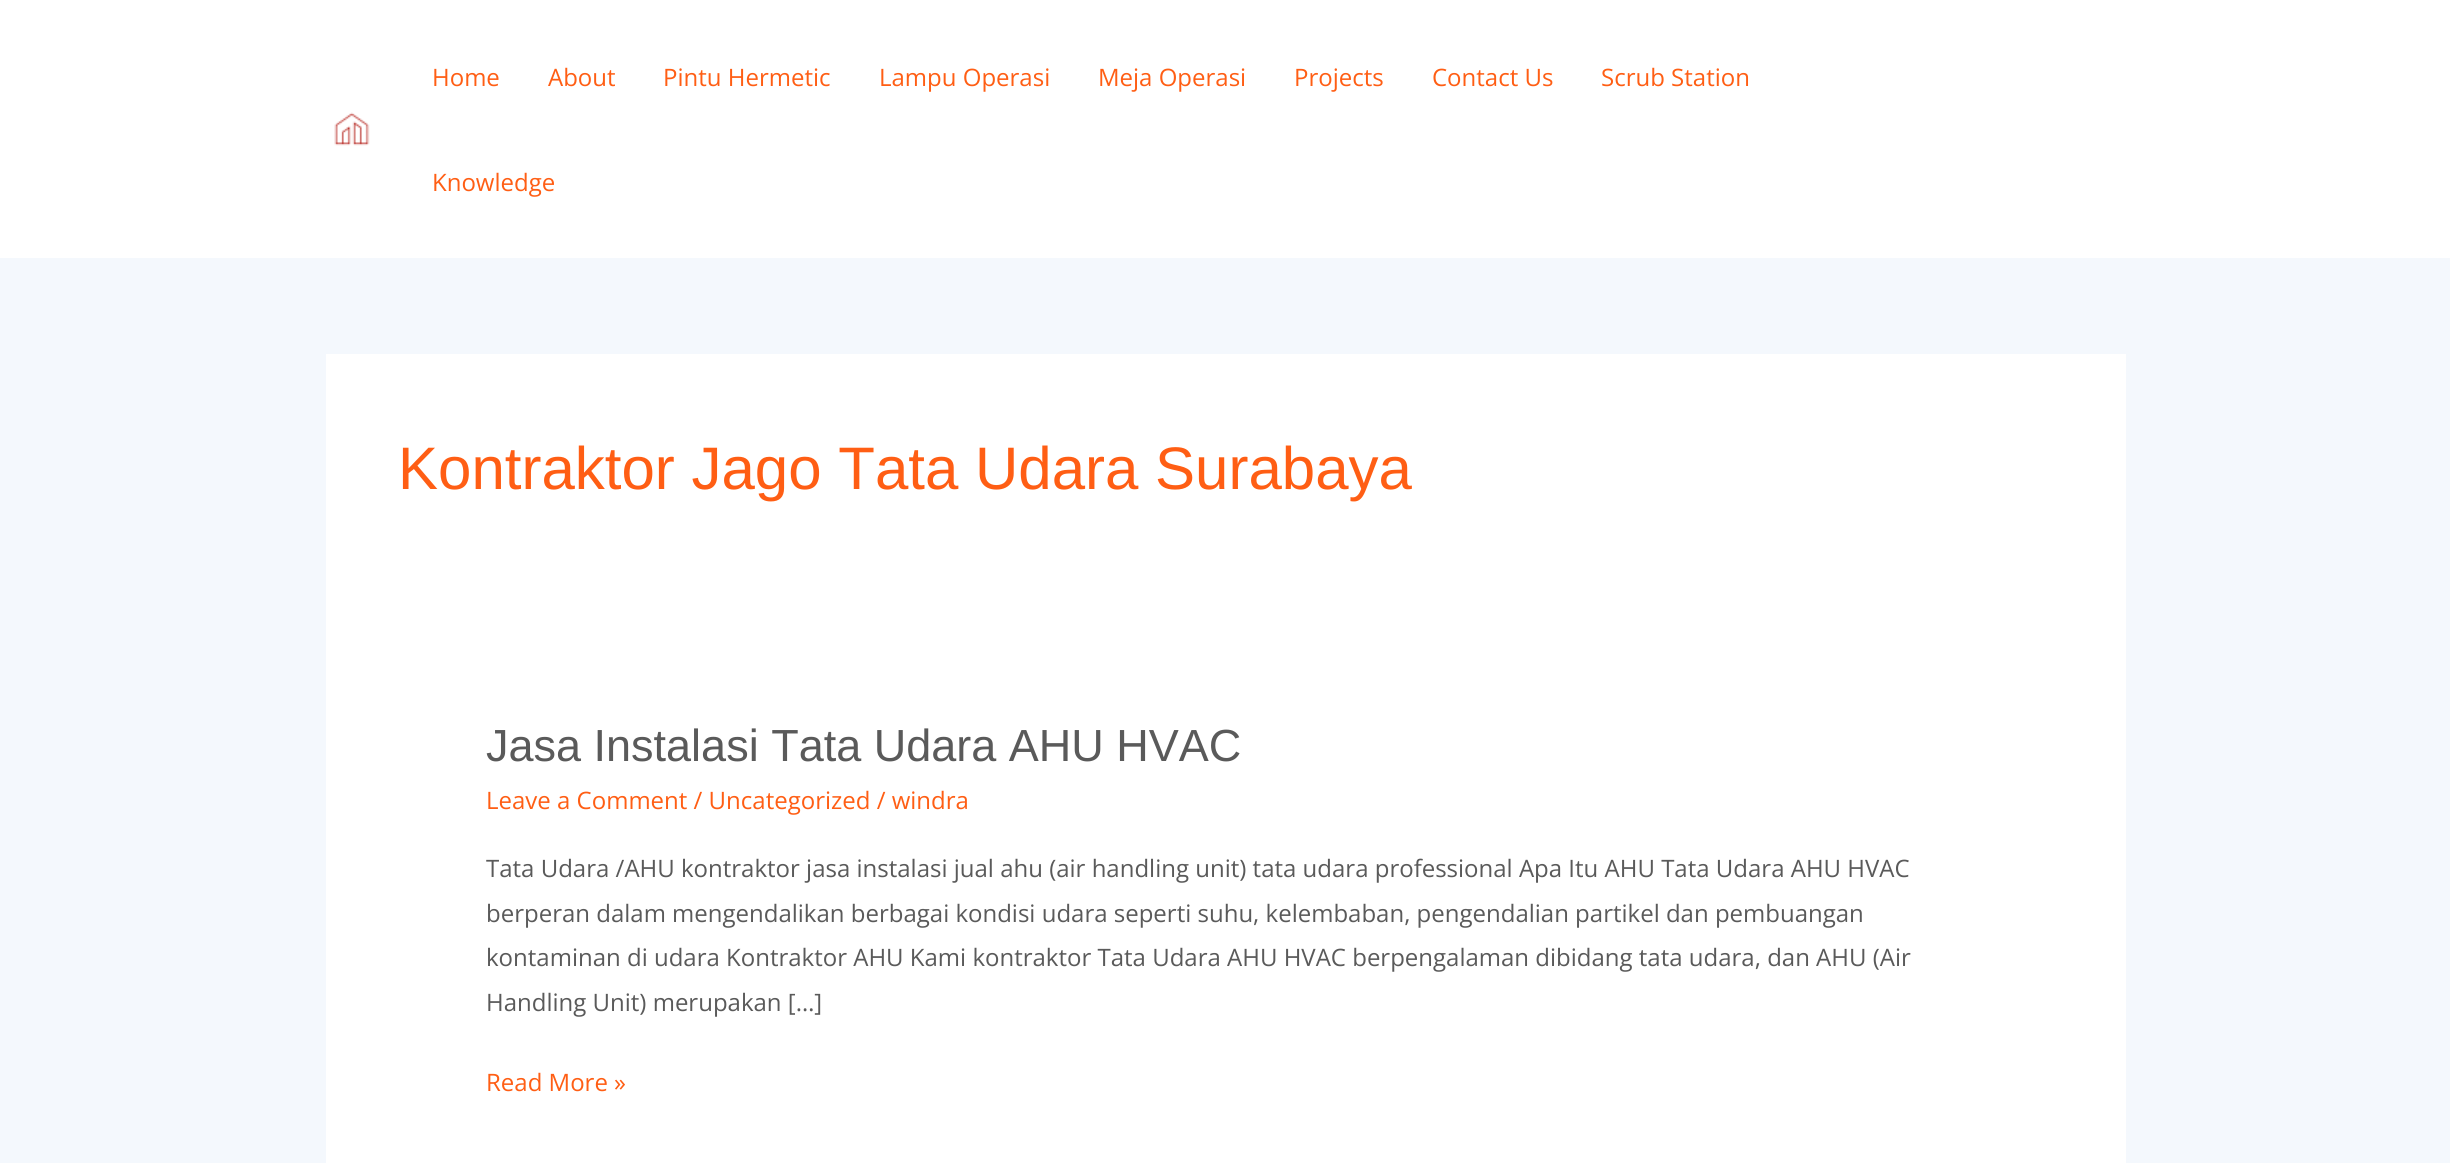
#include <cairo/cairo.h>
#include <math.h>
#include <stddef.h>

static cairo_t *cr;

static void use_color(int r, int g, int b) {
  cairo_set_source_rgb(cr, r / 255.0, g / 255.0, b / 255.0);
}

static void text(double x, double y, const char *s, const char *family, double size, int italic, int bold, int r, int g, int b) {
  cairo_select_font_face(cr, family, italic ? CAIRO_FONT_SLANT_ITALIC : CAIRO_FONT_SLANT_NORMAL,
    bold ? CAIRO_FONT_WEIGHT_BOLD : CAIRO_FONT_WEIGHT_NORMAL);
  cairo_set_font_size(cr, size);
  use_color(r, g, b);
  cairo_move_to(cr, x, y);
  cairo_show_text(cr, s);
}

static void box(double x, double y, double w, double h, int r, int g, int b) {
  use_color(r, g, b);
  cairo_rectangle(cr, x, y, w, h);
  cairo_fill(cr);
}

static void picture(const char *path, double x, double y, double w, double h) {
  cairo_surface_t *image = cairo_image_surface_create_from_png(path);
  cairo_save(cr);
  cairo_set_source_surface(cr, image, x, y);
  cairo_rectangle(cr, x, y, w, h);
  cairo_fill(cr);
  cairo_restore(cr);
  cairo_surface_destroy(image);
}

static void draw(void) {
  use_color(244, 248, 253);
  cairo_paint(cr);
  box(0, 0, 2450, 258, 255, 255, 255);
  picture("img_01.png", 334, 112, 36, 34);
  box(326, 354, 1800, 809, 255, 255, 255);
  text(432, 86, "Home", "Open Sans", 24, 0, 0, 255, 94, 20);
  text(548, 86, "About", "Open Sans", 24, 0, 0, 255, 94, 20);
  text(663, 86, "Pintu Hermetic", "Open Sans", 24, 0, 0, 255, 94, 20);
  text(879, 86, "Lampu Operasi", "Open Sans", 24, 0, 0, 255, 94, 20);
  text(1098, 86, "Meja Operasi", "Open Sans", 24, 0, 0, 255, 94, 20);
  text(1294, 86, "Projects", "Open Sans", 24, 0, 0, 255, 94, 20);
  text(1432, 86, "Contact Us", "Open Sans", 24, 0, 0, 255, 94, 20);
  text(1601, 86, "Scrub Station", "Open Sans", 24, 0, 0, 255, 94, 20);
  text(432, 191, "Knowledge", "Open Sans", 24, 0, 0, 255, 94, 20);
  text(398, 489, "Kontraktor Jago Tata Udara Surabaya", "Liberation Sans", 60, 0, 0, 255, 94, 20);
  text(486, 761, "Jasa Instalasi Tata Udara AHU HVAC", "Liberation Sans", 45, 0, 0, 90, 90, 90);
  text(486, 809, "Leave a Comment / Uncategorized / windra", "Open Sans", 24, 0, 0, 255, 94, 20);
  text(486, 877, "Tata Udara /AHU kontraktor jasa instalasi jual ahu (air handling unit) tata udara professional Apa Itu AHU Tata Udara AHU HVAC", "Open Sans", 24, 0, 0, 90, 90, 90);
  text(486, 922, "berperan dalam mengendalikan berbagai kondisi udara seperti suhu, kelembaban, pengendalian partikel dan pembuangan", "Open Sans", 24, 0, 0, 90, 90, 90);
  text(486, 966, "kontaminan di udara Kontraktor AHU Kami kontraktor Tata Udara AHU HVAC berpengalaman dibidang tata udara, dan AHU (Air", "Open Sans", 24, 0, 0, 90, 90, 90);
  text(486, 1011, "Handling Unit) merupakan […]", "Open Sans", 24, 0, 0, 90, 90, 90);
  text(486, 1091, "Read More »", "Open Sans", 24, 0, 0, 255, 94, 20);
}

int main(void) {
  cairo_surface_t *surface = cairo_image_surface_create(CAIRO_FORMAT_RGB24, 2450, 1163);
  cr = cairo_create(surface);
  cairo_font_options_t *options = cairo_font_options_create();
  cairo_font_options_set_hint_metrics(options, CAIRO_HINT_METRICS_OFF);
  cairo_font_options_set_hint_style(options, CAIRO_HINT_STYLE_NONE);
  cairo_set_font_options(cr, options);
  cairo_set_miter_limit(cr, 4);
  draw();
  cairo_surface_write_to_png(surface, "out.png");
  cairo_font_options_destroy(options);
  cairo_destroy(cr);
  cairo_surface_destroy(surface);
  return 0;
}
